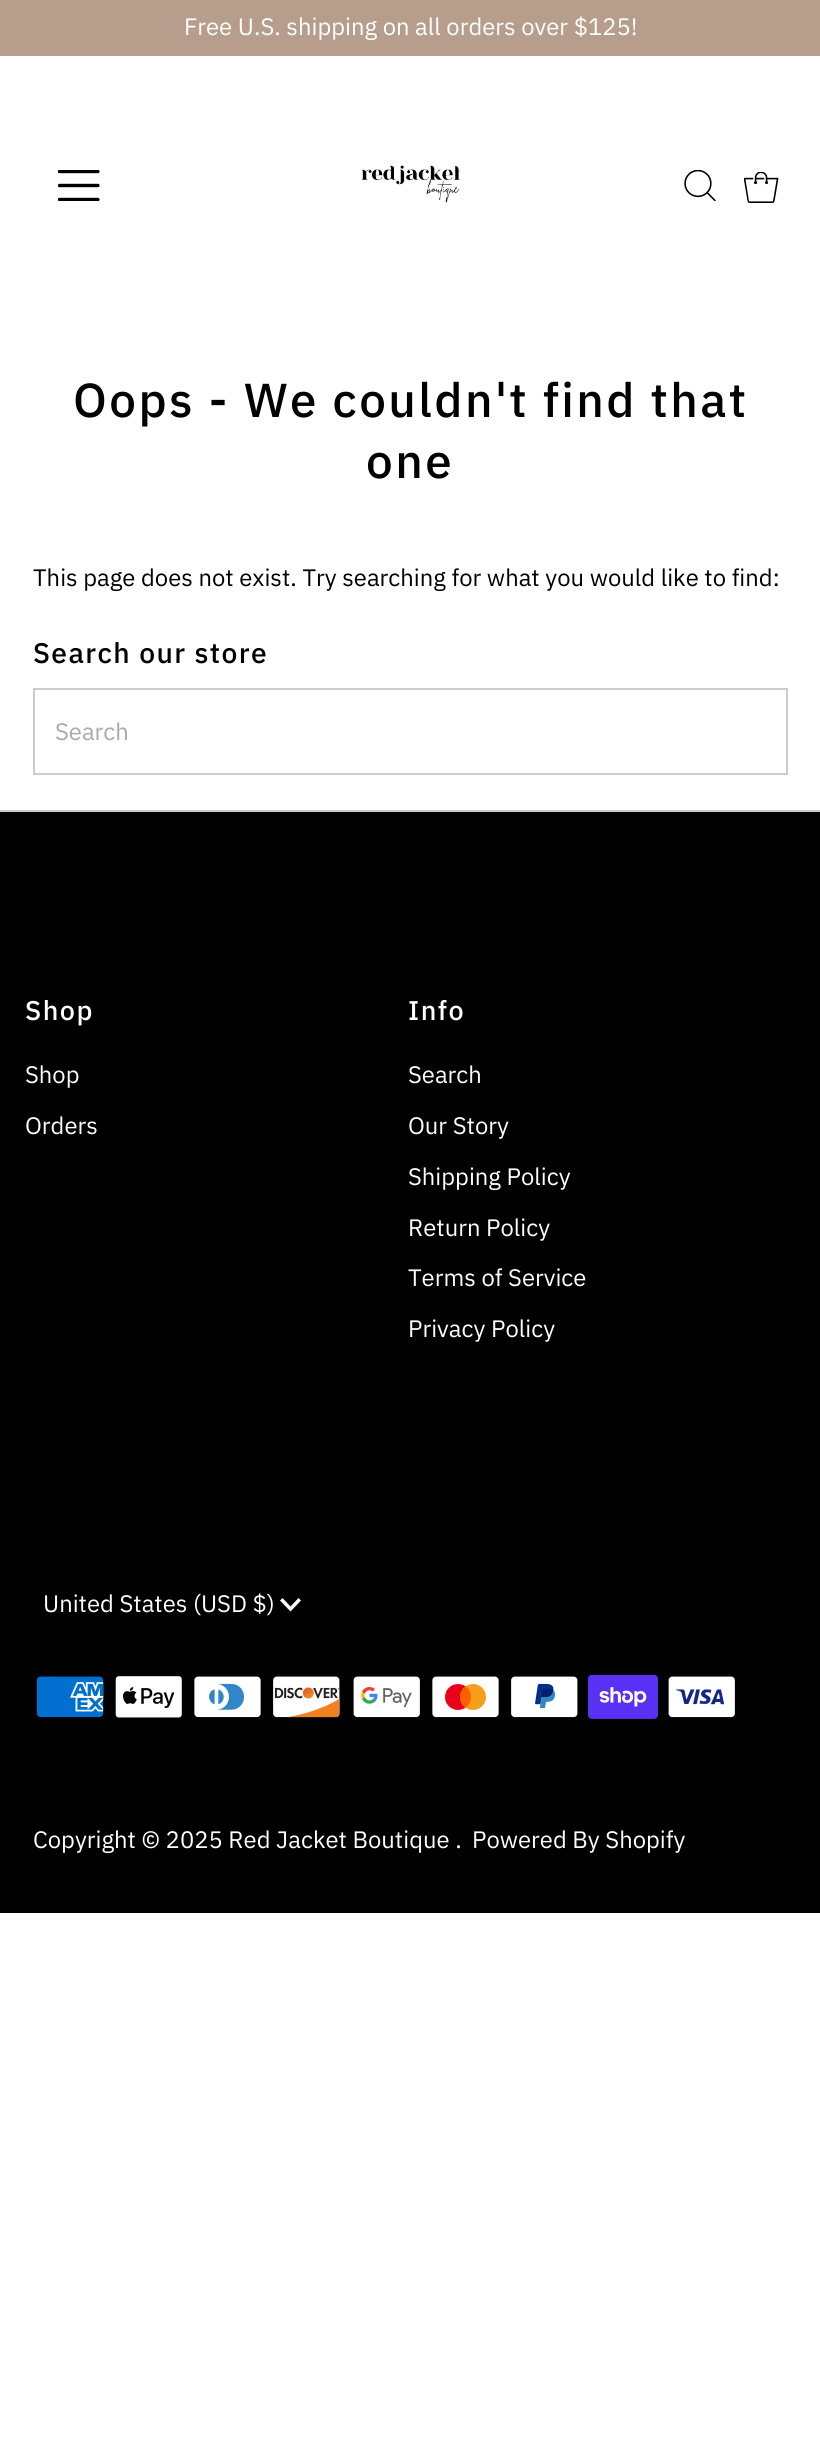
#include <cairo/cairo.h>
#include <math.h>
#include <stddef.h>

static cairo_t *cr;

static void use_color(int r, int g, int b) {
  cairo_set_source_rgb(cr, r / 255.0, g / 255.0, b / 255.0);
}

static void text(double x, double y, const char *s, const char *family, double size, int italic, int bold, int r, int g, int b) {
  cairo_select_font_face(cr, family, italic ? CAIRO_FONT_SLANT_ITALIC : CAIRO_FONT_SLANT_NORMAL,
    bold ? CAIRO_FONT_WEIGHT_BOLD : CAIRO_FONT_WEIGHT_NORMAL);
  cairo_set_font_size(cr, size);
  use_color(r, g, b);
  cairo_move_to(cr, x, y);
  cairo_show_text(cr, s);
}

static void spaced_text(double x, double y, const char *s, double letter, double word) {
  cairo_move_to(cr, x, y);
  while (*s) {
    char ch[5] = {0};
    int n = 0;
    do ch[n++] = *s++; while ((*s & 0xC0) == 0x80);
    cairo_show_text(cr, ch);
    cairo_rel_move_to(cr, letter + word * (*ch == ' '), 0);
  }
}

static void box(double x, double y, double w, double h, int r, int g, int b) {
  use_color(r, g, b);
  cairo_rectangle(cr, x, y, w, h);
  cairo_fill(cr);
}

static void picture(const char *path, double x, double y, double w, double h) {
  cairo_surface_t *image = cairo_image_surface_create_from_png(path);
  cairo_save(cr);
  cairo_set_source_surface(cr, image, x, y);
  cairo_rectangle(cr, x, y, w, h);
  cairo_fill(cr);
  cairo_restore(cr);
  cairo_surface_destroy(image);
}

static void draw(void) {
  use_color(255, 255, 255);
  cairo_paint(cr);
  box(0, 0, 820, 56, 183, 158, 140);
  picture("img_01.png", 58, 170, 42, 31);
  picture("img_02.png", 361, 165, 100, 38);
  picture("img_03.png", 684, 170, 32, 31);
  picture("img_04.png", 744, 172, 35, 31);
  cairo_rectangle(cr, 34, 689, 753, 85);
  use_color(204, 204, 204);
  cairo_stroke(cr);
  box(0, 812, 820, 1101, 0, 0, 0);
  box(0, 810, 820, 2, 204, 204, 204);
  use_color(255, 255, 255);
  cairo_new_path(cr);
  cairo_move_to(cr, 298.5, 1598);
  cairo_line_to(cr, 290.5, 1606.5);
  cairo_line_to(cr, 282.5, 1598);
  cairo_line_to(cr, 280, 1600.5);
  cairo_line_to(cr, 290.5, 1611.5);
  cairo_line_to(cr, 301, 1600.5);
  cairo_close_path(cr);
  cairo_fill(cr);
  picture("img_05.png", 36, 1676, 68, 42);
  picture("img_06.png", 115, 1676, 67, 42);
  picture("img_07.png", 194, 1676, 67, 42);
  picture("img_08.png", 273, 1676, 67, 42);
  picture("img_09.png", 353, 1676, 67, 42);
  picture("img_10.png", 432, 1676, 67, 42);
  picture("img_11.png", 511, 1676, 67, 42);
  picture("img_12.png", 588, 1675, 70, 44);
  picture("img_13.png", 668, 1676, 67, 42);
  text(184, 35, "Free U.S. shipping on all orders over $125!", "IBM Plex Sans", 23.8, 0, 0, 255, 255, 255);
  cairo_select_font_face(cr, "IBM Plex Sans Medium", CAIRO_FONT_SLANT_NORMAL, CAIRO_FONT_WEIGHT_NORMAL);
  cairo_set_font_size(cr, 47.6);
  use_color(0, 0, 0);
  spaced_text(73, 417, "Oops - We couldn't find that", 2.4, 0);
  spaced_text(366, 478, "one", 2.4, 0);
  text(33, 586, "This page does not exist. Try searching for what you would like to find:", "IBM Plex Sans", 23.8, 0, 0, 0, 0, 0);
  cairo_select_font_face(cr, "IBM Plex Sans Medium", CAIRO_FONT_SLANT_NORMAL, CAIRO_FONT_WEIGHT_NORMAL);
  cairo_set_font_size(cr, 28.25);
  spaced_text(33, 663, "Search our store", 1.4, 0);
  text(55, 740, "Search", "IBM Plex Sans", 23.8, 0, 0, 170, 170, 170);
  cairo_select_font_face(cr, "IBM Plex Sans Medium", CAIRO_FONT_SLANT_NORMAL, CAIRO_FONT_WEIGHT_NORMAL);
  cairo_set_font_size(cr, 27);
  use_color(255, 255, 255);
  spaced_text(25, 1020, "Shop", 1.5, 0);
  text(25, 1083, "Shop", "IBM Plex Sans", 23.8, 0, 0, 255, 255, 255);
  text(25, 1134, "Orders", "IBM Plex Sans", 23.8, 0, 0, 255, 255, 255);
  cairo_select_font_face(cr, "IBM Plex Sans Medium", CAIRO_FONT_SLANT_NORMAL, CAIRO_FONT_WEIGHT_NORMAL);
  cairo_set_font_size(cr, 27);
  spaced_text(408, 1020, "Info", 1.5, 0);
  text(408, 1083, "Search", "IBM Plex Sans", 23.8, 0, 0, 255, 255, 255);
  text(408, 1134, "Our Story", "IBM Plex Sans", 23.8, 0, 0, 255, 255, 255);
  text(408, 1185, "Shipping Policy", "IBM Plex Sans", 23.8, 0, 0, 255, 255, 255);
  text(408, 1236, "Return Policy", "IBM Plex Sans", 23.8, 0, 0, 255, 255, 255);
  text(408, 1286, "Terms of Service", "IBM Plex Sans", 23.8, 0, 0, 255, 255, 255);
  text(408, 1337, "Privacy Policy", "IBM Plex Sans", 23.8, 0, 0, 255, 255, 255);
  text(43, 1612, "United States (USD $)", "IBM Plex Sans", 23.8, 0, 0, 255, 255, 255);
  text(33, 1848, "Copyright © 2025 Red Jacket Boutique .", "IBM Plex Sans", 23.8, 0, 0, 255, 255, 255);
  text(472, 1848, "Powered By Shopify", "IBM Plex Sans", 23.8, 0, 0, 255, 255, 255);
}

int main(void) {
  cairo_surface_t *surface = cairo_image_surface_create(CAIRO_FORMAT_RGB24, 820, 2449);
  cr = cairo_create(surface);
  cairo_font_options_t *options = cairo_font_options_create();
  cairo_font_options_set_hint_metrics(options, CAIRO_HINT_METRICS_OFF);
  cairo_font_options_set_hint_style(options, CAIRO_HINT_STYLE_NONE);
  cairo_set_font_options(cr, options);
  cairo_set_miter_limit(cr, 4);
  draw();
  cairo_surface_write_to_png(surface, "out.png");
  cairo_font_options_destroy(options);
  cairo_destroy(cr);
  cairo_surface_destroy(surface);
  return 0;
}
